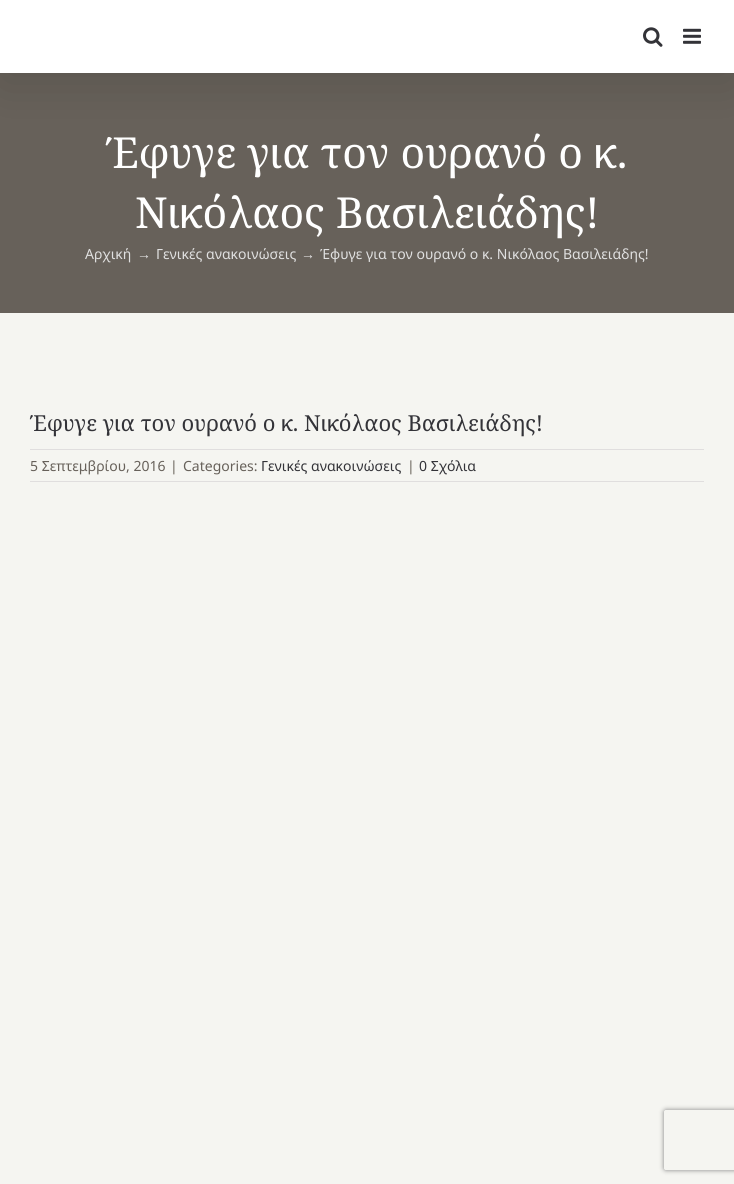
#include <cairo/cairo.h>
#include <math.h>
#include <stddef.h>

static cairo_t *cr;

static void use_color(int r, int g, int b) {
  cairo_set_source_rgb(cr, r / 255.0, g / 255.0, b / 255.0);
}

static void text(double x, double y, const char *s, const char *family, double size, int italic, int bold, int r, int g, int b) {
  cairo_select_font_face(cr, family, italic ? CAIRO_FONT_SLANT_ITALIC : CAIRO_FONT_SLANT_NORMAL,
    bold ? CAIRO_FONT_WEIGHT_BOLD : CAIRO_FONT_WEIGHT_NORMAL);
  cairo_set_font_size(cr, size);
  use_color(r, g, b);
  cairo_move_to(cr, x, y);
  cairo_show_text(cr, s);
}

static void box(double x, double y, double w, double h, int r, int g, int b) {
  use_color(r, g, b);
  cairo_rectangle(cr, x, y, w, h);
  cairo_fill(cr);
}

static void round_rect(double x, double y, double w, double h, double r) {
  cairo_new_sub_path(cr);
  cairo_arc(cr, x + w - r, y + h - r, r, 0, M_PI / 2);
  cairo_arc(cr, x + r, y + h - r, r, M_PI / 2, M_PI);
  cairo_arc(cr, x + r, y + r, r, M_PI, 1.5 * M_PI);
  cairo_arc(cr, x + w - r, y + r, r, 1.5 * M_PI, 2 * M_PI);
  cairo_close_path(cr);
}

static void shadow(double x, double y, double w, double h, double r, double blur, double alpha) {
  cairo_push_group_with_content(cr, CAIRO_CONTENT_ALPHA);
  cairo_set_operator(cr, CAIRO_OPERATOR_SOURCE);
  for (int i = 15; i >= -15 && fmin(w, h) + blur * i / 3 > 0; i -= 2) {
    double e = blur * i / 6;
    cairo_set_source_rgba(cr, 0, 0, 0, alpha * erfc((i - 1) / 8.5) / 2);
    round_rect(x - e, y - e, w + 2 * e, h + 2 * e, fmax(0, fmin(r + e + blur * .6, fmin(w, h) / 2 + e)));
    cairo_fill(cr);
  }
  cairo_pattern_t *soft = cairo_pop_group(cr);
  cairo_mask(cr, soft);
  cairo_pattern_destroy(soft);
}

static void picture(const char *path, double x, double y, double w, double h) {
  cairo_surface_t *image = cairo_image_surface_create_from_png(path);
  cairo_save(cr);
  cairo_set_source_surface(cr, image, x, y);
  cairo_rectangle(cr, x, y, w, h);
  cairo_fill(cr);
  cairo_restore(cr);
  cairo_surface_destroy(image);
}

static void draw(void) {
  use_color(103, 97, 90);
  cairo_paint(cr);
  use_color(0, 0, 0);
  shadow(2, 12, 730, 69, 0, 25, 0.14);
  box(0, 0, 734, 73, 255, 255, 255);
  picture("img_01.png", 643, 27, 20, 20);
  picture("img_02.png", 683, 28, 18, 16);
  box(0, 313, 734, 871, 245, 245, 241);
  box(30, 449, 674, 1, 224, 222, 222);
  box(30, 481, 674, 1, 224, 222, 222);
  cairo_save(cr);
  cairo_set_fill_rule(cr, CAIRO_FILL_RULE_EVEN_ODD);
  cairo_new_path(cr);
  cairo_move_to(cr, 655, 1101);
  cairo_line_to(cr, 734, 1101);
  cairo_line_to(cr, 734, 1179);
  cairo_line_to(cr, 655, 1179);
  cairo_close_path(cr);
  cairo_move_to(cr, 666, 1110);
  cairo_line_to(cr, 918, 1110);
  cairo_curve_to(cr, 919, 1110, 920, 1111, 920, 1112);
  cairo_line_to(cr, 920, 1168);
  cairo_curve_to(cr, 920, 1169, 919, 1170, 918, 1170);
  cairo_line_to(cr, 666, 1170);
  cairo_curve_to(cr, 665, 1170, 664, 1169, 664, 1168);
  cairo_line_to(cr, 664, 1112);
  cairo_curve_to(cr, 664, 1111, 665, 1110, 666, 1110);
  cairo_close_path(cr);
  cairo_clip(cr);
  use_color(128, 128, 128);
  shadow(664, 1110, 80, 60, 2, 2.5, 1);
  cairo_restore(cr);
  text(106, 168, "Έφυγε για τον ουρανό ο κ.", "Noto Serif", 42.75, 0, 0, 255, 255, 255);
  text(135, 228, "Νικόλαος Βασιλειάδης!", "Noto Serif", 42.75, 0, 0, 255, 255, 255);
  text(85, 259, "Αρχική", "Noto Sans", 14, 0, 0, 224, 224, 224);
  text(137, 259, "→", "Liberation Sans", 14, 0, 0, 224, 224, 224);
  text(156, 259, "Γενικές ανακοινώσεις", "Noto Sans", 14, 0, 0, 224, 224, 224);
  text(301, 259, "→", "Liberation Sans", 14, 0, 0, 224, 224, 224);
  text(320, 259, "Έφυγε για τον ουρανό ο κ. Νικόλαος Βασιλειάδης!", "Noto Sans", 14, 0, 0, 224, 224, 224);
  text(30, 431, "Έφυγε για τον ουρανό ο κ. Νικόλαος Βασιλειάδης!", "Noto Serif", 22, 0, 0, 51, 51, 56);
  text(30, 471, "5 Σεπτεμβρίου, 2016", "Noto Sans", 14, 0, 0, 103, 97, 90);
  text(170, 471, "|", "Noto Sans", 14, 0, 0, 103, 97, 90);
  text(183, 471, "Categories:", "Noto Sans", 14, 0, 0, 103, 97, 90);
  text(261, 471, "Γενικές ανακοινώσεις", "Noto Sans", 14, 0, 0, 51, 51, 56);
  text(407, 471, "|", "Noto Sans", 14, 0, 0, 103, 97, 90);
  text(419, 471, "0 Σχόλια", "Noto Sans", 14, 0, 0, 51, 51, 56);
}

int main(void) {
  cairo_surface_t *surface = cairo_image_surface_create(CAIRO_FORMAT_RGB24, 734, 1184);
  cr = cairo_create(surface);
  cairo_font_options_t *options = cairo_font_options_create();
  cairo_font_options_set_hint_metrics(options, CAIRO_HINT_METRICS_OFF);
  cairo_font_options_set_hint_style(options, CAIRO_HINT_STYLE_NONE);
  cairo_set_font_options(cr, options);
  cairo_set_miter_limit(cr, 4);
  draw();
  cairo_surface_write_to_png(surface, "out.png");
  cairo_font_options_destroy(options);
  cairo_destroy(cr);
  cairo_surface_destroy(surface);
  return 0;
}
